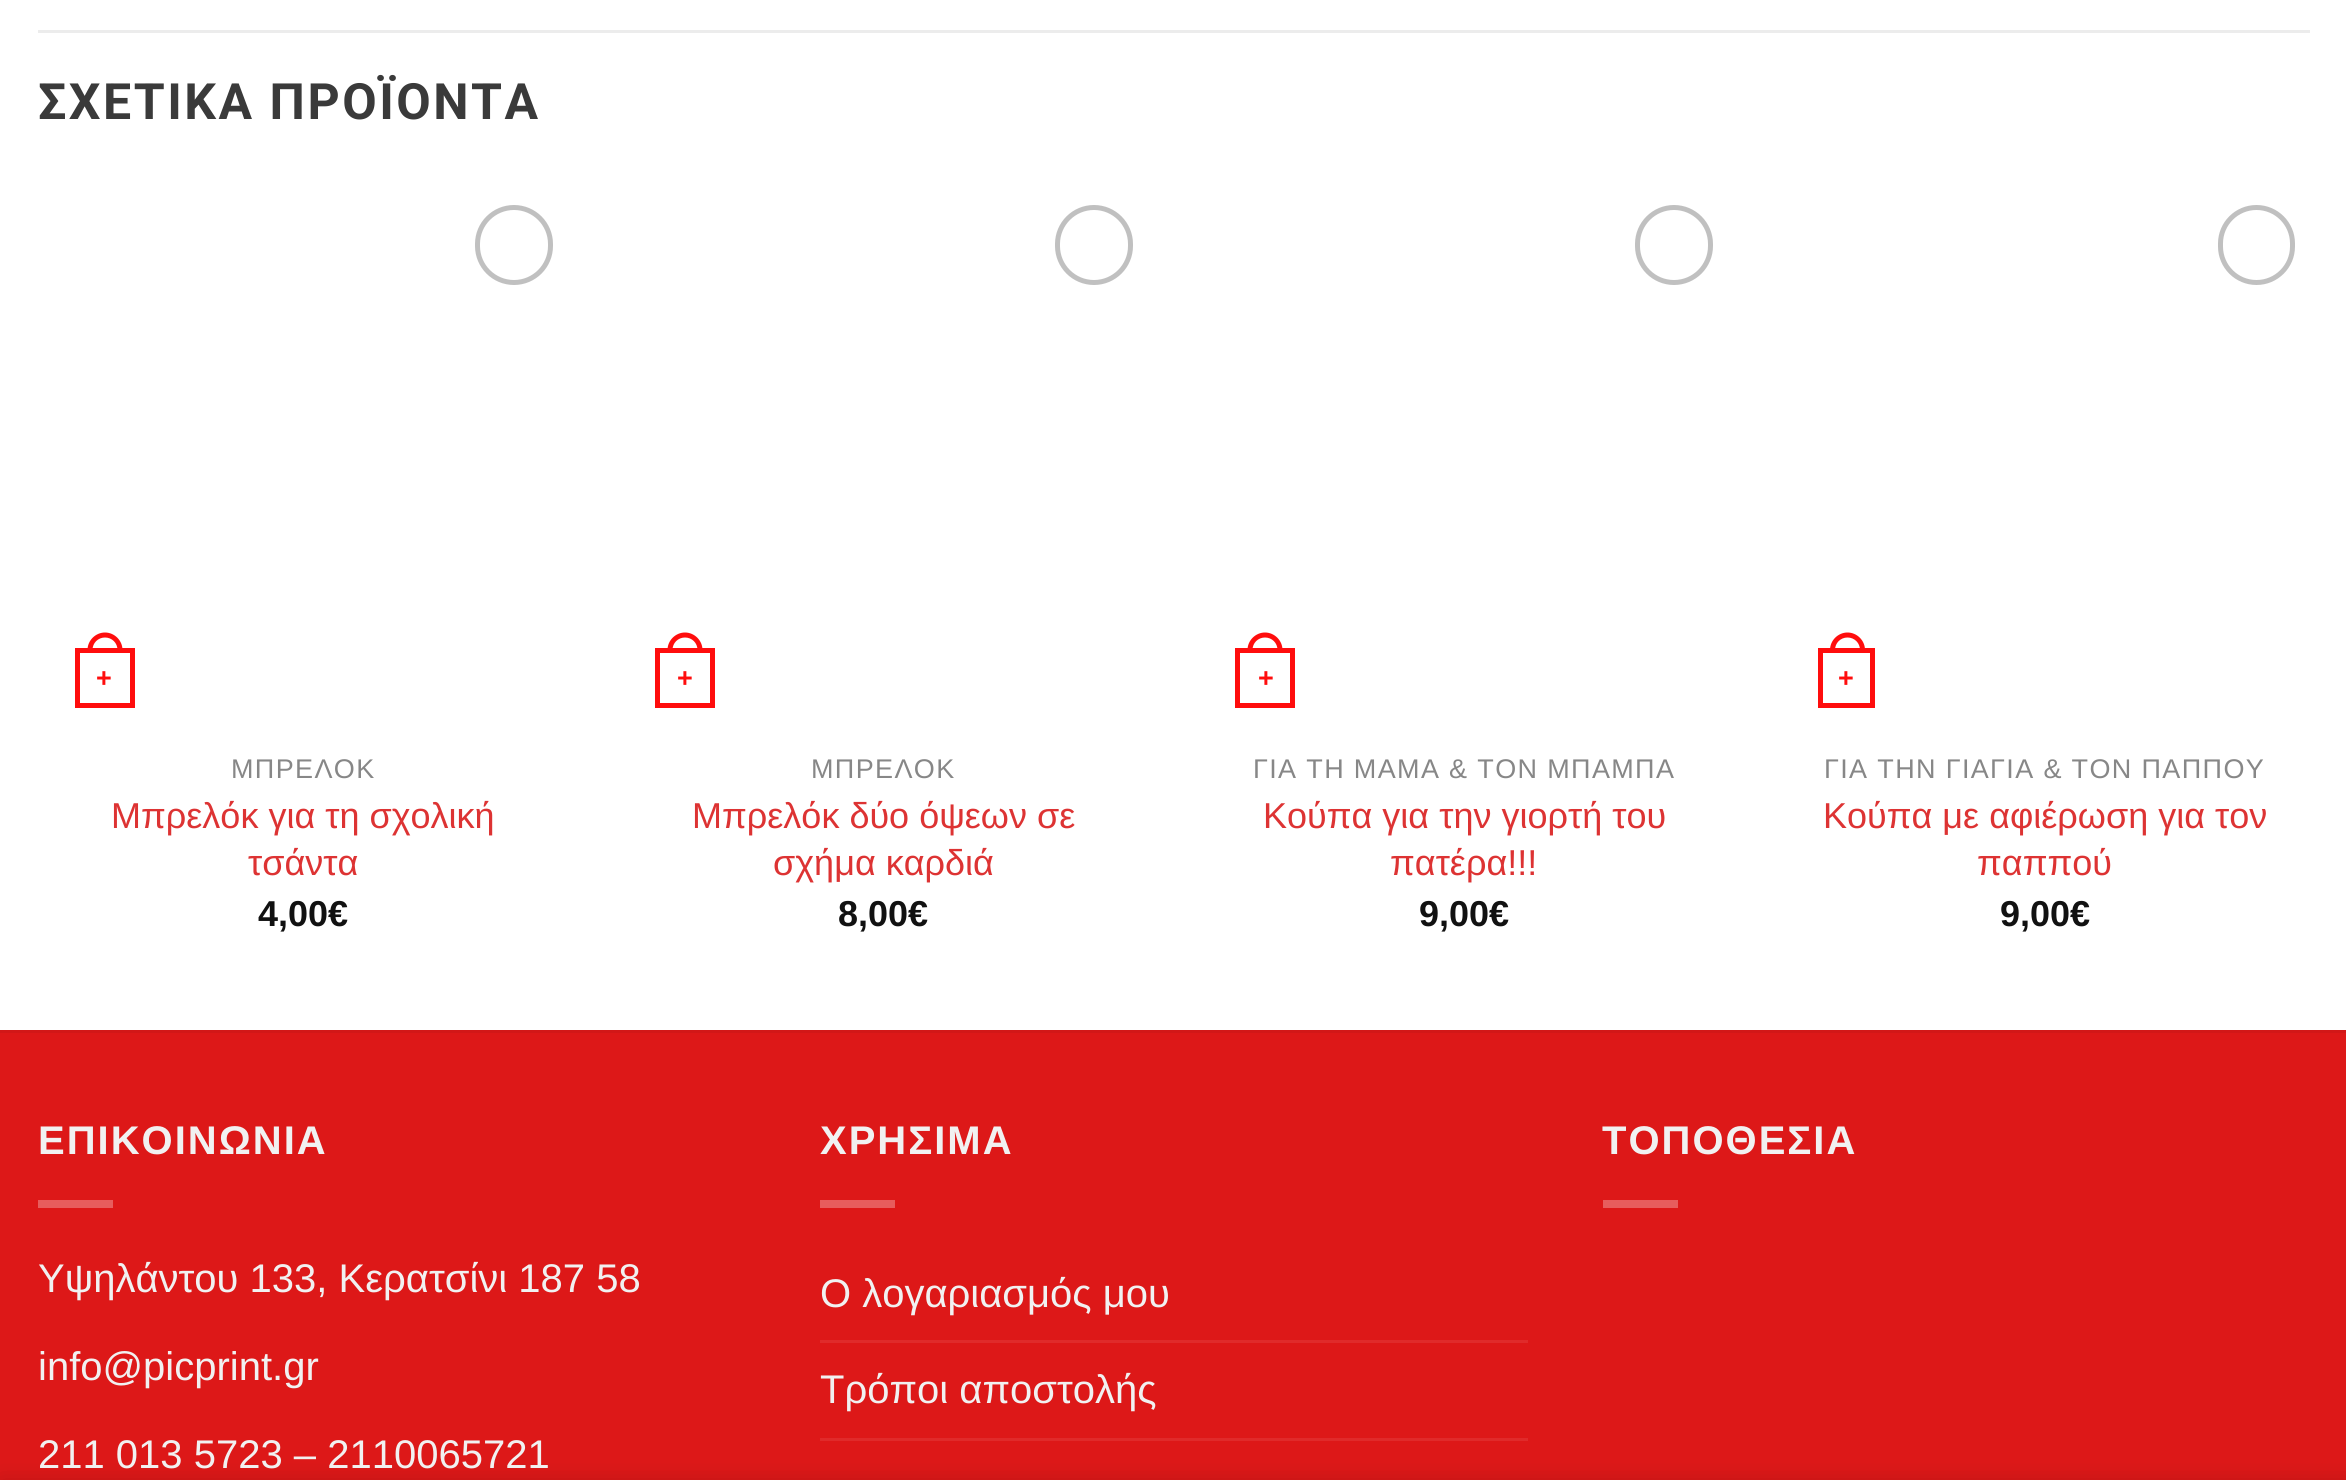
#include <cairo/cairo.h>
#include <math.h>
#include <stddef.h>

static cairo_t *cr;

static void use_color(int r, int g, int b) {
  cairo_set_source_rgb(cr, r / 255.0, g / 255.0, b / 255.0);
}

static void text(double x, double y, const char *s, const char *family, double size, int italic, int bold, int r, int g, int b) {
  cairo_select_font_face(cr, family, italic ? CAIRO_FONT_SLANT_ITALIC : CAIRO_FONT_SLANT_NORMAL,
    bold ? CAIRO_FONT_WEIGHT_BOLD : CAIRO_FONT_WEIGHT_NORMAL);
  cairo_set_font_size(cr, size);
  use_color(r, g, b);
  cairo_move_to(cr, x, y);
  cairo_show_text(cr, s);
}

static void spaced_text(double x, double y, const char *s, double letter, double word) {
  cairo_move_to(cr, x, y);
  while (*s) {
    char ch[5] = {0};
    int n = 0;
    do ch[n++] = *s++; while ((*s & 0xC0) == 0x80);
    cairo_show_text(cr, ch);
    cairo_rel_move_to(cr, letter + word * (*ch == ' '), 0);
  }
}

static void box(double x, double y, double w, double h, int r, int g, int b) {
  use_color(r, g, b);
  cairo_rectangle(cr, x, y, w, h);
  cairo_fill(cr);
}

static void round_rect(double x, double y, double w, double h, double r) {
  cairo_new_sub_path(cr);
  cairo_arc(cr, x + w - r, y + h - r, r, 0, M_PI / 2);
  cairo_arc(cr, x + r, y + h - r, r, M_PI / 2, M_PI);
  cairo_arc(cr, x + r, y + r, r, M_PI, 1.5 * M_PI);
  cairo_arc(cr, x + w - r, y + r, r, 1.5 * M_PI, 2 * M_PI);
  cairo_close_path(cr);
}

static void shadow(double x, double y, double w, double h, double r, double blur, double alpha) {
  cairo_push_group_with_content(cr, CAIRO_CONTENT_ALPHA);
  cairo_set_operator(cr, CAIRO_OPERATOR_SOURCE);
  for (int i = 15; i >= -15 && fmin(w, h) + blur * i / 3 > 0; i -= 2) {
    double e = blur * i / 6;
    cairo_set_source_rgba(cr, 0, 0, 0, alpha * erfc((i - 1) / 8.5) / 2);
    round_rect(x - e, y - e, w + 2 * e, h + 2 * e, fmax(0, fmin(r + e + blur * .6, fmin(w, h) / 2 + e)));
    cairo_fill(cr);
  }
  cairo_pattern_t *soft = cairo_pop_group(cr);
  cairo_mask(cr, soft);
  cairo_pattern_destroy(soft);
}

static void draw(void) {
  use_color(255, 255, 255);
  cairo_paint(cr);
  box(38, 30, 2272, 3, 236, 236, 236);
  round_rect(477.5, 207.5, 73, 75, 36.5);
  use_color(192, 192, 192);
  cairo_set_line_width(cr, 5);
  cairo_stroke(cr);
  cairo_rectangle(cr, 77.5, 650.5, 55, 55);
  use_color(255, 13, 13);
  cairo_stroke(cr);
  cairo_set_fill_rule(cr, CAIRO_FILL_RULE_EVEN_ODD);
  cairo_new_path(cr);
  cairo_move_to(cr, 105, 632.5);
  cairo_curve_to(cr, 114.5, 632.5, 122.5, 640.5, 122.5, 650);
  cairo_line_to(cr, 122.5, 652.5);
  cairo_line_to(cr, 87.5, 652.5);
  cairo_line_to(cr, 87.5, 650);
  cairo_curve_to(cr, 87.5, 640.5, 95.5, 632.5, 105, 632.5);
  cairo_close_path(cr);
  cairo_move_to(cr, 105, 637.5);
  cairo_curve_to(cr, 112, 637.5, 117.5, 643, 117.5, 650);
  cairo_line_to(cr, 117.5, 652.5);
  cairo_line_to(cr, 92.5, 652.5);
  cairo_line_to(cr, 92.5, 650);
  cairo_curve_to(cr, 92.5, 643, 98, 637.5, 105, 637.5);
  cairo_close_path(cr);
  cairo_fill(cr);
  round_rect(1057.5, 207.5, 73, 75, 36.5);
  use_color(192, 192, 192);
  cairo_stroke(cr);
  cairo_rectangle(cr, 657.5, 650.5, 55, 55);
  use_color(255, 13, 13);
  cairo_stroke(cr);
  cairo_new_path(cr);
  cairo_move_to(cr, 685, 632.5);
  cairo_curve_to(cr, 694.5, 632.5, 702.5, 640.5, 702.5, 650);
  cairo_line_to(cr, 702.5, 652.5);
  cairo_line_to(cr, 667.5, 652.5);
  cairo_line_to(cr, 667.5, 650);
  cairo_curve_to(cr, 667.5, 640.5, 675.5, 632.5, 685, 632.5);
  cairo_close_path(cr);
  cairo_move_to(cr, 685, 637.5);
  cairo_curve_to(cr, 692, 637.5, 697.5, 643, 697.5, 650);
  cairo_line_to(cr, 697.5, 652.5);
  cairo_line_to(cr, 672.5, 652.5);
  cairo_line_to(cr, 672.5, 650);
  cairo_curve_to(cr, 672.5, 643, 678, 637.5, 685, 637.5);
  cairo_close_path(cr);
  cairo_fill(cr);
  round_rect(1637.5, 207.5, 73, 75, 36.5);
  use_color(192, 192, 192);
  cairo_stroke(cr);
  cairo_rectangle(cr, 1237.5, 650.5, 55, 55);
  use_color(255, 13, 13);
  cairo_stroke(cr);
  cairo_new_path(cr);
  cairo_move_to(cr, 1265, 632.5);
  cairo_curve_to(cr, 1274.5, 632.5, 1282.5, 640.5, 1282.5, 650);
  cairo_line_to(cr, 1282.5, 652.5);
  cairo_line_to(cr, 1247.5, 652.5);
  cairo_line_to(cr, 1247.5, 650);
  cairo_curve_to(cr, 1247.5, 640.5, 1255.5, 632.5, 1265, 632.5);
  cairo_close_path(cr);
  cairo_move_to(cr, 1265, 637.5);
  cairo_curve_to(cr, 1272, 637.5, 1277.5, 643, 1277.5, 650);
  cairo_line_to(cr, 1277.5, 652.5);
  cairo_line_to(cr, 1252.5, 652.5);
  cairo_line_to(cr, 1252.5, 650);
  cairo_curve_to(cr, 1252.5, 643, 1258, 637.5, 1265, 637.5);
  cairo_close_path(cr);
  cairo_fill(cr);
  round_rect(2220.5, 207.5, 72, 75, 36);
  use_color(192, 192, 192);
  cairo_stroke(cr);
  cairo_rectangle(cr, 1820.5, 650.5, 52, 55);
  use_color(255, 13, 13);
  cairo_stroke(cr);
  cairo_new_path(cr);
  cairo_move_to(cr, 1847.5, 632.5);
  cairo_curve_to(cr, 1857, 632.5, 1865, 640.5, 1865, 650);
  cairo_line_to(cr, 1865, 652.5);
  cairo_line_to(cr, 1830, 652.5);
  cairo_line_to(cr, 1830, 650);
  cairo_curve_to(cr, 1830, 640.5, 1838, 632.5, 1847.5, 632.5);
  cairo_close_path(cr);
  cairo_move_to(cr, 1847.5, 637.5);
  cairo_curve_to(cr, 1854.5, 637.5, 1860, 643, 1860, 650);
  cairo_line_to(cr, 1860, 652.5);
  cairo_line_to(cr, 1835, 652.5);
  cairo_line_to(cr, 1835, 650);
  cairo_curve_to(cr, 1835, 643, 1840.5, 637.5, 1847.5, 637.5);
  cairo_close_path(cr);
  cairo_fill(cr);
  box(0, 1033, 2346, 447, 221, 24, 24);
  box(0, 1030, 2346, 3, 210, 23, 23);
  box(38, 1200, 75, 8, 231, 93, 93);
  box(820, 1200, 75, 8, 231, 93, 93);
  box(820, 1340, 708, 3, 224, 42, 42);
  box(820, 1438, 708, 3, 224, 42, 42);
  box(1603, 1200, 75, 8, 231, 93, 93);
  use_color(0, 0, 0);
  shadow(0, 1480, 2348, 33, 0, 11, 0.14);
  cairo_select_font_face(cr, "Roboto", CAIRO_FONT_SLANT_NORMAL, CAIRO_FONT_WEIGHT_BOLD);
  cairo_set_font_size(cr, 50);
  use_color(58, 58, 58);
  spaced_text(38, 119, "ΣΧΕΤΙΚΑ ΠΡΟΪΟΝΤΑ", 2.5, 0);
  text(96, 687, "+", "Liberation Sans", 27, 0, 1, 255, 13, 13);
  cairo_select_font_face(cr, "Liberation Sans", CAIRO_FONT_SLANT_NORMAL, CAIRO_FONT_WEIGHT_NORMAL);
  use_color(135, 135, 135);
  spaced_text(231, 778, "ΜΠΡΕΛΟΚ", 1.35, 0);
  text(111, 828, "Μπρελόκ για τη σχολική", "Liberation Sans", 36, 0, 0, 221, 51, 51);
  text(248, 875, "τσάντα", "Liberation Sans", 36, 0, 0, 221, 51, 51);
  text(258, 926, "4,00€", "Liberation Sans", 36, 0, 1, 17, 17, 17);
  text(677, 687, "+", "Liberation Sans", 27, 0, 1, 255, 13, 13);
  cairo_select_font_face(cr, "Liberation Sans", CAIRO_FONT_SLANT_NORMAL, CAIRO_FONT_WEIGHT_NORMAL);
  use_color(135, 135, 135);
  spaced_text(811, 778, "ΜΠΡΕΛΟΚ", 1.35, 0);
  text(692, 828, "Μπρελόκ δύο όψεων σε", "Liberation Sans", 36, 0, 0, 221, 51, 51);
  text(773, 875, "σχήμα καρδιά", "Liberation Sans", 36, 0, 0, 221, 51, 51);
  text(838, 926, "8,00€", "Liberation Sans", 36, 0, 1, 17, 17, 17);
  text(1258, 687, "+", "Liberation Sans", 27, 0, 1, 255, 13, 13);
  cairo_select_font_face(cr, "Liberation Sans", CAIRO_FONT_SLANT_NORMAL, CAIRO_FONT_WEIGHT_NORMAL);
  use_color(135, 135, 135);
  spaced_text(1253, 778, "ΓΙΑ ΤΗ ΜΑΜΑ & ΤΟΝ ΜΠΑΜΠΑ", 1.35, 0);
  text(1263, 828, "Κούπα για την γιορτή του", "Liberation Sans", 36, 0, 0, 221, 51, 51);
  text(1390, 875, "πατέρα!!!", "Liberation Sans", 36, 0, 0, 221, 51, 51);
  text(1419, 926, "9,00€", "Liberation Sans", 36, 0, 1, 17, 17, 17);
  text(1838, 687, "+", "Liberation Sans", 27, 0, 1, 255, 13, 13);
  cairo_select_font_face(cr, "Liberation Sans", CAIRO_FONT_SLANT_NORMAL, CAIRO_FONT_WEIGHT_NORMAL);
  use_color(135, 135, 135);
  spaced_text(1824, 778, "ΓΙΑ ΤΗΝ ΓΙΑΓΙΑ & ΤΟΝ ΠΑΠΠΟΥ", 1.35, 0);
  text(1823, 828, "Κούπα με αφιέρωση για τον", "Liberation Sans", 36, 0, 0, 221, 51, 51);
  text(1977, 875, "παππού", "Liberation Sans", 36, 0, 0, 221, 51, 51);
  text(2000, 926, "9,00€", "Liberation Sans", 36, 0, 1, 17, 17, 17);
  cairo_set_font_size(cr, 40);
  use_color(241, 241, 241);
  spaced_text(38, 1154, "ΕΠΙΚΟΙΝΩΝΙΑ", 2, 0);
  text(38, 1292, "Υψηλάντου 133, Κερατσίνι 187 58", "Liberation Sans", 40, 0, 0, 241, 241, 241);
  text(38, 1380, "info@picprint.gr", "Liberation Sans", 40, 0, 0, 241, 241, 241);
  text(38, 1468, "211 013 5723 – 2110065721", "Liberation Sans", 40, 0, 0, 241, 241, 241);
  cairo_select_font_face(cr, "Liberation Sans", CAIRO_FONT_SLANT_NORMAL, CAIRO_FONT_WEIGHT_BOLD);
  spaced_text(820, 1154, "ΧΡΗΣΙΜΑ", 2, 0);
  text(820, 1307, "Ο λογαριασμός μου", "Liberation Sans", 40, 0, 0, 241, 241, 241);
  text(820, 1403, "Τρόποι αποστολής", "Liberation Sans", 40, 0, 0, 241, 241, 241);
  cairo_select_font_face(cr, "Liberation Sans", CAIRO_FONT_SLANT_NORMAL, CAIRO_FONT_WEIGHT_BOLD);
  spaced_text(1602, 1154, "ΤΟΠΟΘΕΣΙΑ", 2, 0);
}

int main(void) {
  cairo_surface_t *surface = cairo_image_surface_create(CAIRO_FORMAT_RGB24, 2346, 1480);
  cr = cairo_create(surface);
  cairo_font_options_t *options = cairo_font_options_create();
  cairo_font_options_set_hint_metrics(options, CAIRO_HINT_METRICS_OFF);
  cairo_font_options_set_hint_style(options, CAIRO_HINT_STYLE_NONE);
  cairo_set_font_options(cr, options);
  cairo_set_miter_limit(cr, 4);
  draw();
  cairo_surface_write_to_png(surface, "out.png");
  cairo_font_options_destroy(options);
  cairo_destroy(cr);
  cairo_surface_destroy(surface);
  return 0;
}
